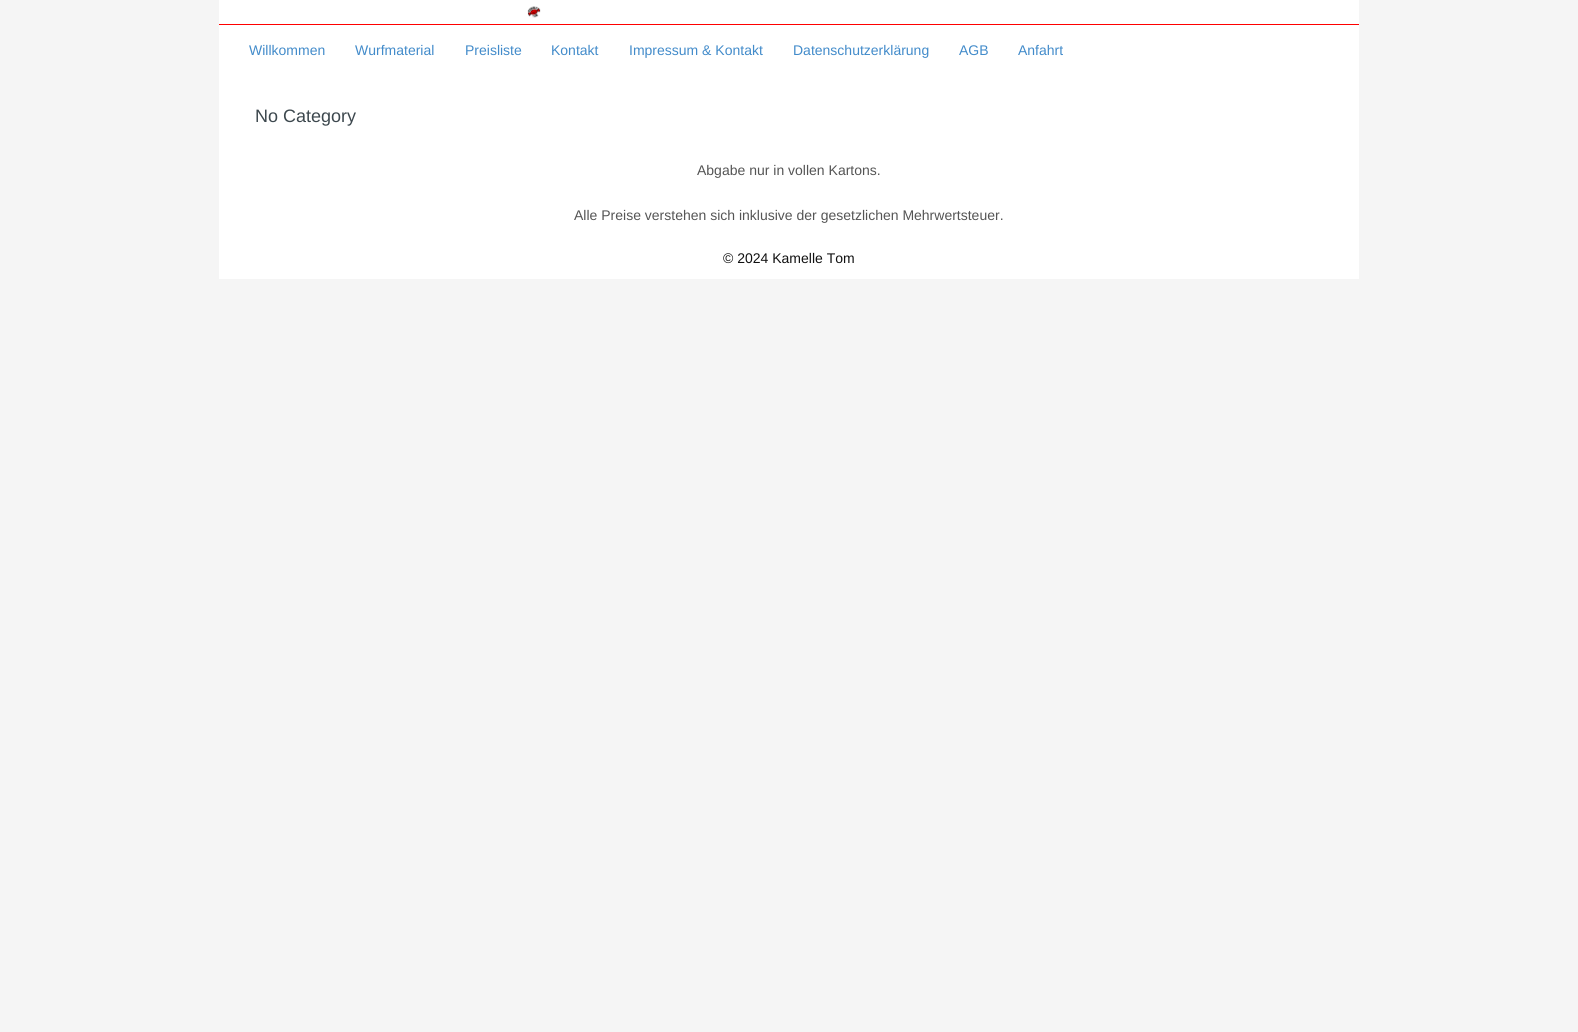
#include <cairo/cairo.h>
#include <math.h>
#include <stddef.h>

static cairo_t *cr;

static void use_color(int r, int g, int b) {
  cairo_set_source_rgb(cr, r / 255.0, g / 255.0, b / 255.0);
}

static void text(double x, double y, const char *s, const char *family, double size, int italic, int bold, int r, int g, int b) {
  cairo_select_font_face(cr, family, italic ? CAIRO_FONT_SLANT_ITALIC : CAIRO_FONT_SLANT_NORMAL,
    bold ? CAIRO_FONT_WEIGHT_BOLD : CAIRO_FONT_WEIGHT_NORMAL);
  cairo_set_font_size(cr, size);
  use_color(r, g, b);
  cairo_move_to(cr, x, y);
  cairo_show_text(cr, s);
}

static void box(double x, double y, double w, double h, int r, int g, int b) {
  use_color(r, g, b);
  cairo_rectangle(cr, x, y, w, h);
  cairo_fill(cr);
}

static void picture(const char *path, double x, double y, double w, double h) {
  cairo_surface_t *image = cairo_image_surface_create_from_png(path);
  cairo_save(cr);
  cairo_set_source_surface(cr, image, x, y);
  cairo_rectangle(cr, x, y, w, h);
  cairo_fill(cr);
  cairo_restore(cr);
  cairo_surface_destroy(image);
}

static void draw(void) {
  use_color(245, 245, 245);
  cairo_paint(cr);
  box(219, 0, 1140, 279, 255, 255, 255);
  box(219, 24, 1140, 1, 255, 0, 0);
  picture("img_01.png", 527, 6, 14, 12);
  text(249, 55, "Willkommen", "Liberation Sans", 14, 0, 0, 66, 139, 202);
  text(355, 55, "Wurfmaterial", "Liberation Sans", 14, 0, 0, 66, 139, 202);
  text(465, 55, "Preisliste", "Liberation Sans", 14, 0, 0, 66, 139, 202);
  text(551, 55, "Kontakt", "Liberation Sans", 14, 0, 0, 66, 139, 202);
  text(629, 55, "Impressum & Kontakt", "Liberation Sans", 14, 0, 0, 66, 139, 202);
  text(793, 55, "Datenschutzerklärung", "Liberation Sans", 14, 0, 0, 66, 139, 202);
  text(959, 55, "AGB", "Liberation Sans", 14, 0, 0, 66, 139, 202);
  text(1018, 55, "Anfahrt", "Liberation Sans", 14, 0, 0, 66, 139, 202);
  text(255, 122, "No Category", "Liberation Sans", 18, 0, 0, 61, 72, 78);
  text(697, 175, "Abgabe nur in vollen Kartons.", "Liberation Sans", 14, 0, 0, 85, 85, 85);
  text(574, 220, "Alle Preise verstehen sich inklusive der gesetzlichen Mehrwertsteuer.", "Liberation Sans", 14, 0, 0, 85, 85, 85);
  text(723, 263, "© 2024 Kamelle Tom", "Liberation Sans", 14, 0, 0, 17, 17, 17);
}

int main(void) {
  cairo_surface_t *surface = cairo_image_surface_create(CAIRO_FORMAT_RGB24, 1578, 1032);
  cr = cairo_create(surface);
  cairo_font_options_t *options = cairo_font_options_create();
  cairo_font_options_set_hint_metrics(options, CAIRO_HINT_METRICS_OFF);
  cairo_font_options_set_hint_style(options, CAIRO_HINT_STYLE_NONE);
  cairo_set_font_options(cr, options);
  cairo_set_miter_limit(cr, 4);
  draw();
  cairo_surface_write_to_png(surface, "out.png");
  cairo_font_options_destroy(options);
  cairo_destroy(cr);
  cairo_surface_destroy(surface);
  return 0;
}
